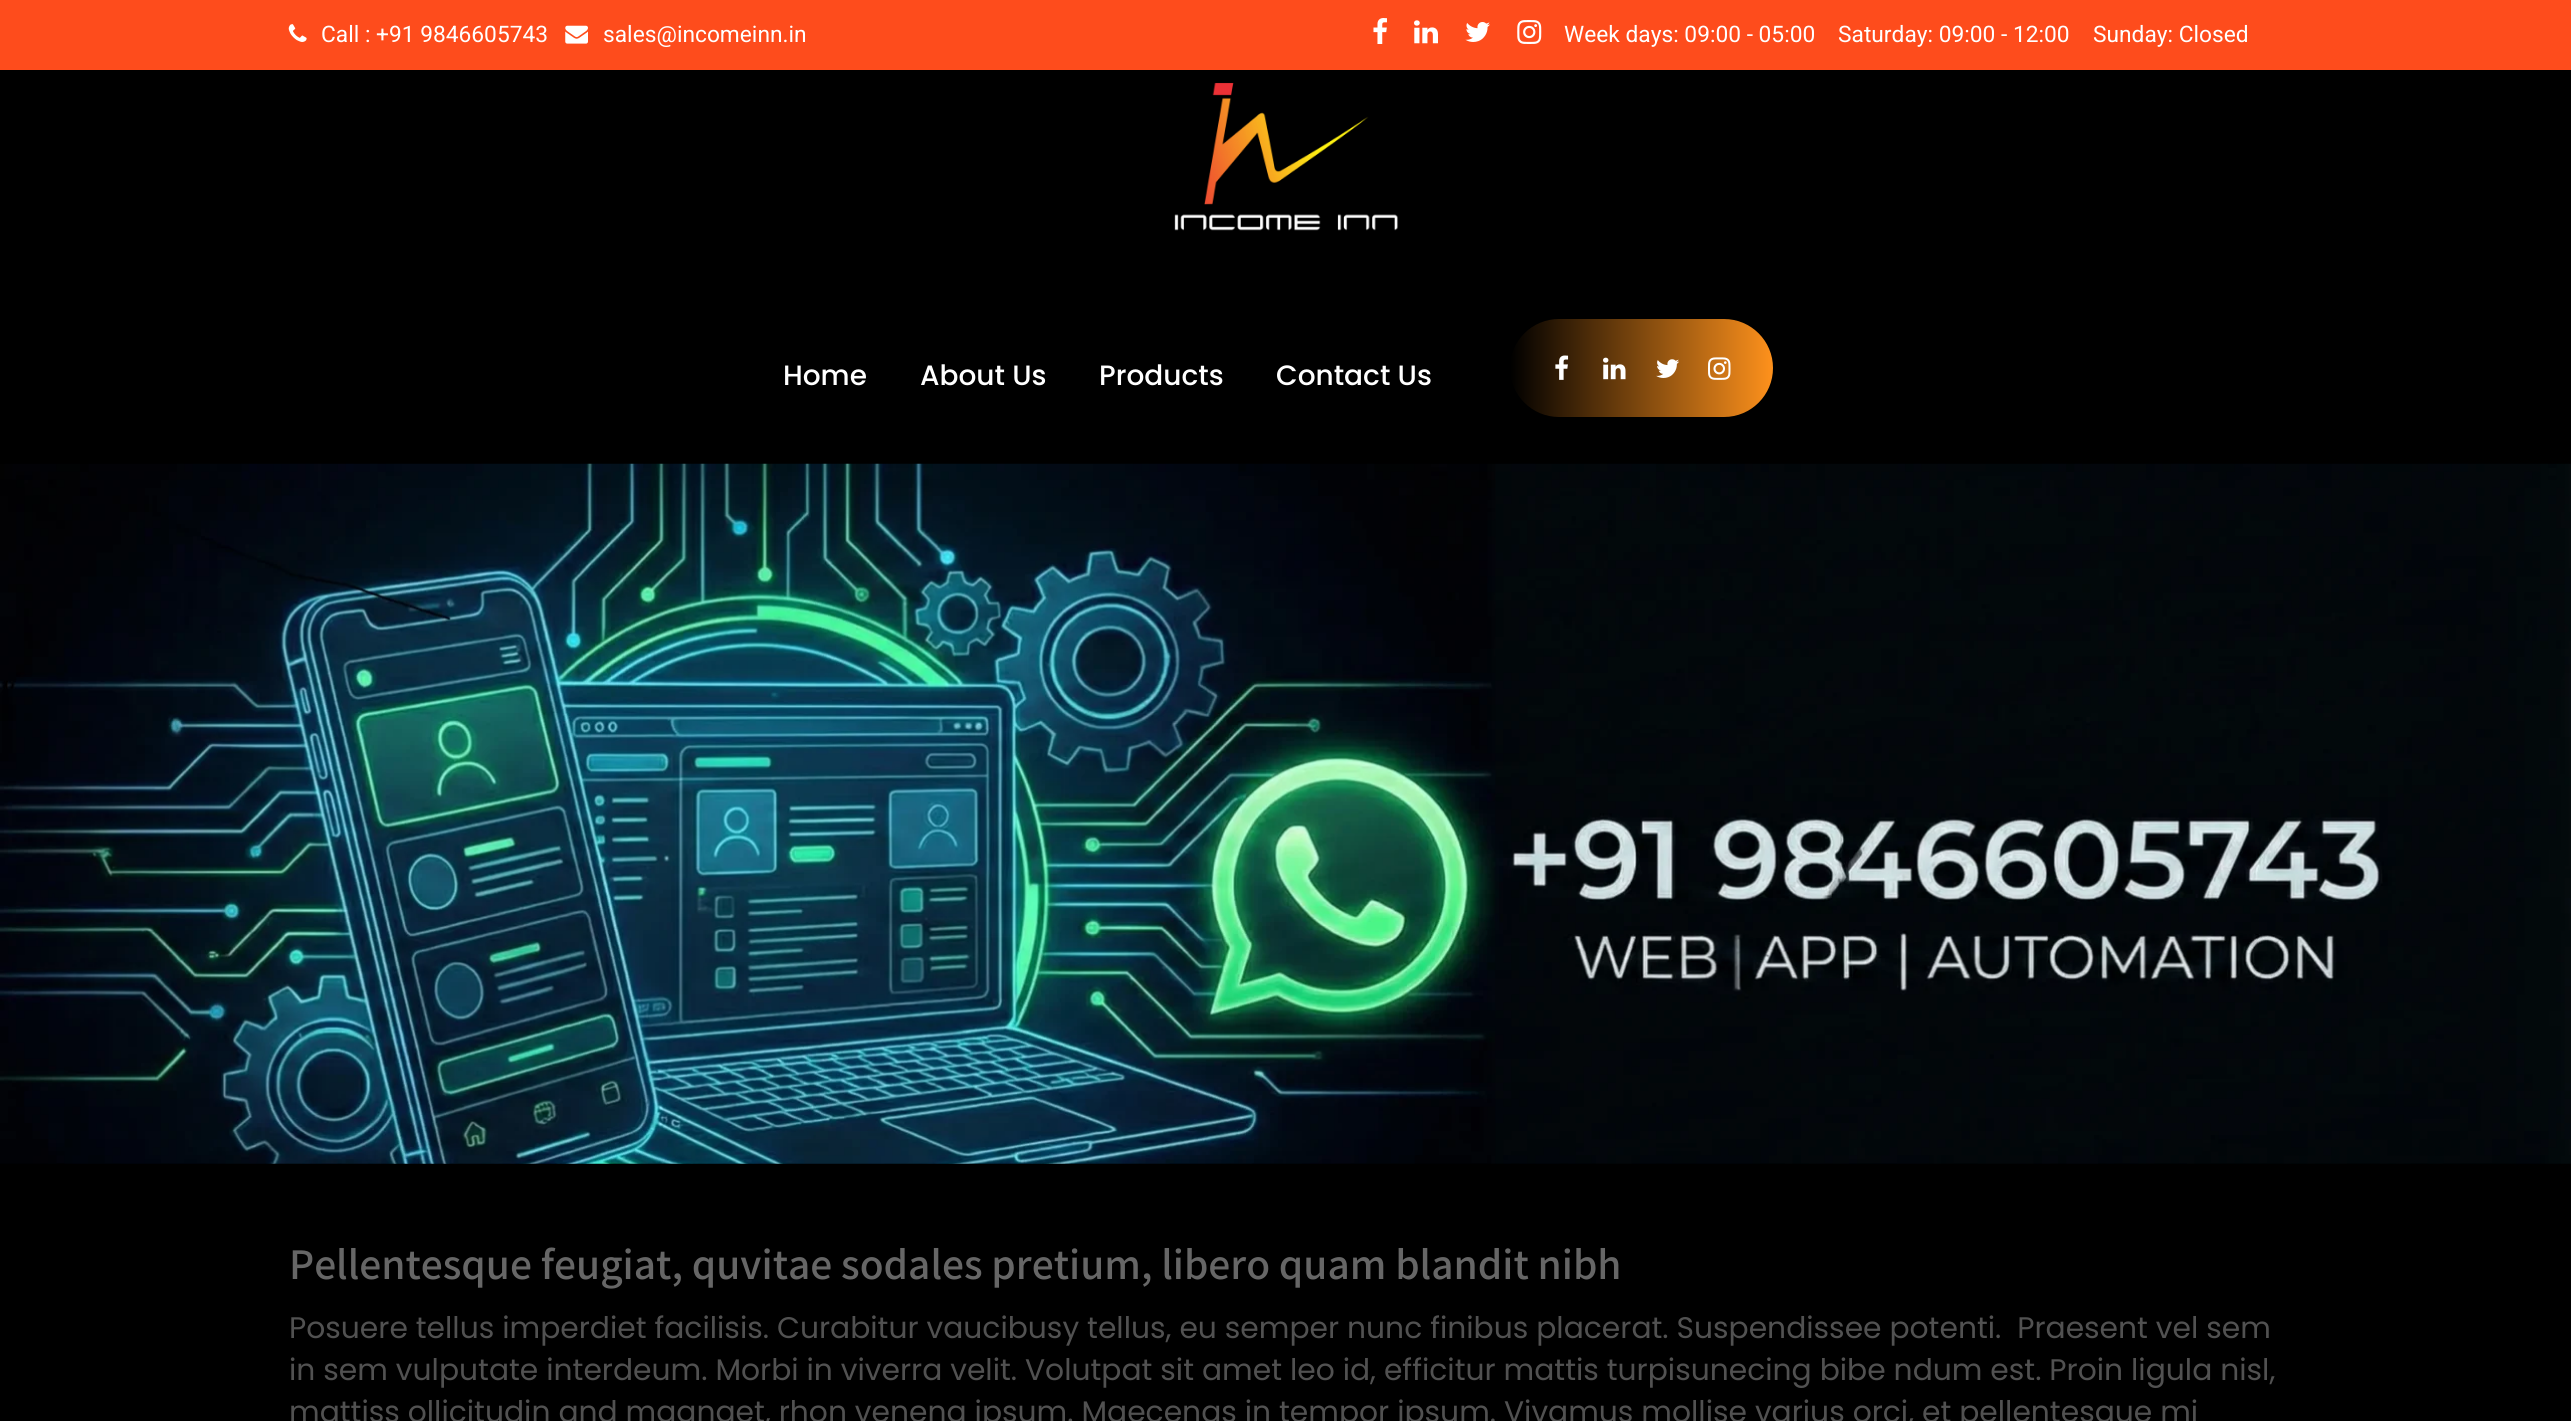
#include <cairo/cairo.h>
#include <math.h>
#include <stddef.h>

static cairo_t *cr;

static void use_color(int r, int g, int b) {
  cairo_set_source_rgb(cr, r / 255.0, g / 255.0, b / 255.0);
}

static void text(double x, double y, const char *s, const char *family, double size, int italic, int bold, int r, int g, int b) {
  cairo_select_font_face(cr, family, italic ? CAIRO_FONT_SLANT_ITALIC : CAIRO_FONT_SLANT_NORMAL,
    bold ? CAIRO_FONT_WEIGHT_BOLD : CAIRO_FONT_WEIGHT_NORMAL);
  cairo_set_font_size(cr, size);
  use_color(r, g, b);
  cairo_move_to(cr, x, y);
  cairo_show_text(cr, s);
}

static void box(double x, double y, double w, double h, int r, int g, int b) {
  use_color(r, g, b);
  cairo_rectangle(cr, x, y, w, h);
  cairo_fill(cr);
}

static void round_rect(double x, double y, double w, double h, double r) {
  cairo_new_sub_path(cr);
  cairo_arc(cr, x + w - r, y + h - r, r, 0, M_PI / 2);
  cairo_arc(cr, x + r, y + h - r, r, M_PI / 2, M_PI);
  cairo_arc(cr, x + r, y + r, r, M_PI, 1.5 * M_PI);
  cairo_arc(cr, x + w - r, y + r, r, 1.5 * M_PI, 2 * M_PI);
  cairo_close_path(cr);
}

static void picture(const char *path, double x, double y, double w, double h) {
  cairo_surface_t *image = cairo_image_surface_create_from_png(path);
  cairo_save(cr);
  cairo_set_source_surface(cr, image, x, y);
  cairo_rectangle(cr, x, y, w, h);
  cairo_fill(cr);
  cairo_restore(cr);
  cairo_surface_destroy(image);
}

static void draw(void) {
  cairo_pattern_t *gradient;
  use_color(0, 0, 0);
  cairo_paint(cr);
  box(0, 0, 2571, 70, 254, 76, 28);
  picture("img_01.png", 288, 24, 19, 18);
  picture("img_02.png", 565, 25, 23, 19);
  picture("img_03.png", 1373, 18, 14, 26);
  picture("img_04.png", 1414, 20, 24, 24);
  picture("img_05.png", 1465, 22, 25, 20);
  picture("img_06.png", 1517, 20, 25, 24);
  picture("img_07.png", 1174, 82, 225, 149);
  gradient = cairo_pattern_create_linear(1510, 368, 1773, 368);
  cairo_pattern_add_color_stop_rgba(gradient, 0, 0, 0, 0, 1);
  cairo_pattern_add_color_stop_rgba(gradient, 1, 0.996, 0.569, 0.11, 1);
  cairo_set_source(cr, gradient);
  cairo_pattern_destroy(gradient);
  round_rect(1510, 319, 263, 98, 49);
  cairo_fill(cr);
  picture("img_08.png", 1555, 355, 14, 25);
  picture("img_09.png", 1603, 357, 23, 23);
  picture("img_10.png", 1656, 359, 24, 19);
  picture("img_11.png", 1708, 357, 23, 23);
  picture("img_12.png", 0, 463, 2571, 701);
  text(321, 42, "Call : +91 9846605743", "Roboto", 22.75, 0, 0, 255, 255, 255);
  text(603, 42, "sales@incomeinn.in", "Roboto", 22.75, 0, 0, 255, 255, 255);
  text(1564, 42, "Week days: 09:00 - 05:00", "Roboto", 22.75, 0, 0, 255, 255, 255);
  text(1838, 42, "Saturday: 09:00 - 12:00", "Roboto", 22.75, 0, 0, 255, 255, 255);
  text(2093, 42, "Sunday: Closed", "Roboto", 22.75, 0, 0, 255, 255, 255);
  text(783, 385, "Home", "Poppins Medium", 28, 0, 0, 255, 255, 255);
  text(920, 385, "About Us", "Poppins Medium", 28, 0, 0, 255, 255, 255);
  text(1099, 385, "Products", "Poppins Medium", 28, 0, 0, 255, 255, 255);
  text(1276, 385, "Contact Us", "Poppins Medium", 28, 0, 0, 255, 255, 255);
  text(289, 1279, "Pellentesque feugiat, quvitae sodales pretium, libero quam blandit nibh", "Assistant ExtraLight", 43.75, 0, 0, 102, 102, 102);
  text(289, 1338, "Posuere tellus imperdiet facilisis. Curabitur vaucibusy tellus, eu semper nunc finibus placerat. Suspendissee potenti.  Praesent vel sem", "Poppins", 29.75, 0, 0, 81, 81, 81);
  text(289, 1380, "in sem vulputate interdeum. Morbi in viverra velit. Volutpat sit amet leo id, efficitur mattis turpisunecing bibe ndum est. Proin ligula nisl,", "Poppins", 29.75, 0, 0, 81, 81, 81);
  text(289, 1422, "mattiss ollicitudin and magnaet, rhon venena ipsum. Maecenas in tempor ipsum. Vivamus mollise varius orci, et pellentesque mi", "Poppins", 29.75, 0, 0, 81, 81, 81);
}

int main(void) {
  cairo_surface_t *surface = cairo_image_surface_create(CAIRO_FORMAT_RGB24, 2571, 1421);
  cr = cairo_create(surface);
  cairo_font_options_t *options = cairo_font_options_create();
  cairo_font_options_set_hint_metrics(options, CAIRO_HINT_METRICS_OFF);
  cairo_font_options_set_hint_style(options, CAIRO_HINT_STYLE_NONE);
  cairo_set_font_options(cr, options);
  cairo_set_miter_limit(cr, 4);
  draw();
  cairo_surface_write_to_png(surface, "out.png");
  cairo_font_options_destroy(options);
  cairo_destroy(cr);
  cairo_surface_destroy(surface);
  return 0;
}
